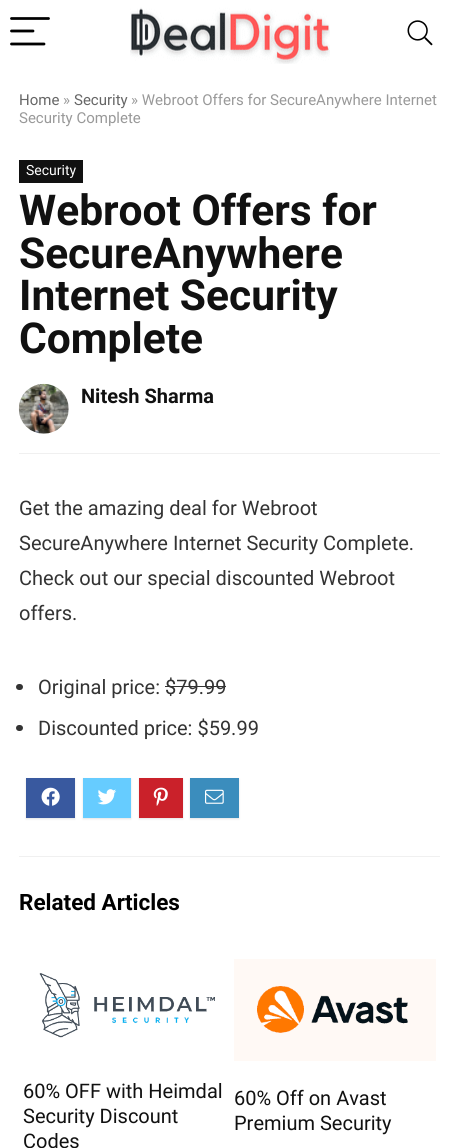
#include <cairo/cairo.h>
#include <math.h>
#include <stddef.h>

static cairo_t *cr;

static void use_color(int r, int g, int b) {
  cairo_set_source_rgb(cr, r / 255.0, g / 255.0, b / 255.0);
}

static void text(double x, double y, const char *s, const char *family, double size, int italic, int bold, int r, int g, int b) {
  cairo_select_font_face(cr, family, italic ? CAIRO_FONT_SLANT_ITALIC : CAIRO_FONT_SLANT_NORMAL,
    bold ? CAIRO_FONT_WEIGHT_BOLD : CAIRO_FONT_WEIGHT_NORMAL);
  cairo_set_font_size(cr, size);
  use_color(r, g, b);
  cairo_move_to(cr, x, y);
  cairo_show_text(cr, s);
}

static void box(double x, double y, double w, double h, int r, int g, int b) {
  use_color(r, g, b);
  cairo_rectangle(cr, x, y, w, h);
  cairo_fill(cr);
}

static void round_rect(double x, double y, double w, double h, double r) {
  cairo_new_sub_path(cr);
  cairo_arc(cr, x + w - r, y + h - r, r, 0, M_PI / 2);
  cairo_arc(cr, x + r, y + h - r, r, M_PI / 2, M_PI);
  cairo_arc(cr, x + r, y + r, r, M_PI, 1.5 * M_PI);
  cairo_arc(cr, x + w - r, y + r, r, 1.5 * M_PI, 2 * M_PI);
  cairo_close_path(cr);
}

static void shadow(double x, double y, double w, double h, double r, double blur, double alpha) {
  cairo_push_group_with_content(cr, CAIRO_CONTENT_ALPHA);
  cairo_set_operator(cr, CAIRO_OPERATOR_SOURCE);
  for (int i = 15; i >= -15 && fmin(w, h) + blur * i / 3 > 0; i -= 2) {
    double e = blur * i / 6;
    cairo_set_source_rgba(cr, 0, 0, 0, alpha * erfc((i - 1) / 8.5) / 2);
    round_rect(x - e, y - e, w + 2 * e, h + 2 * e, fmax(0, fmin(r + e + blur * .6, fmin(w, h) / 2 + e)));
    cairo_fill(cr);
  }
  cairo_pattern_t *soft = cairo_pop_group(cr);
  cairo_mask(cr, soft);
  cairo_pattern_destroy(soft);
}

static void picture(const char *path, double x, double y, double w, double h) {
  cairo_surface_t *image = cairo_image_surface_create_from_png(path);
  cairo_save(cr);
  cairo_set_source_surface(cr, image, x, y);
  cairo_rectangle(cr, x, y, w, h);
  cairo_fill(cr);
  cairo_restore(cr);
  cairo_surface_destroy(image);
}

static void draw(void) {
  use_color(255, 255, 255);
  cairo_paint(cr);
  cairo_new_path(cr);
  cairo_move_to(cr, 11.5, 18.5);
  cairo_line_to(cr, 48.5, 18.5);
  cairo_move_to(cr, 11.5, 31);
  cairo_line_to(cr, 33, 31);
  cairo_move_to(cr, 11.5, 44);
  cairo_line_to(cr, 44, 44);
  use_color(0, 0, 0);
  cairo_set_line_width(cr, 2.8);
  cairo_set_line_cap(cr, CAIRO_LINE_CAP_ROUND);
  cairo_stroke(cr);
  picture("img_01.png", 130, 7, 200, 57);
  picture("img_02.png", 407, 20, 26, 26);
  box(19, 160, 64, 23, 17, 17, 17);
  box(19, 453, 421, 1, 240, 240, 240);
  picture("img_03.png", 18, 383, 51, 51);
  use_color(51, 51, 51);
  round_rect(16, 684, 7, 6, 3);
  cairo_fill(cr);
  box(165, 686, 61, 1, 51, 51, 51);
  round_rect(16, 725, 7, 6, 3);
  cairo_fill(cr);
  use_color(228, 228, 228);
  shadow(26, 779, 49, 40, 0, 1, 1);
  box(26, 778, 49, 40, 57, 89, 159);
  picture("img_04.png", 41, 787, 19, 19);
  use_color(228, 228, 228);
  shadow(83, 779, 48, 40, 0, 1, 1);
  box(83, 778, 48, 40, 102, 204, 255);
  picture("img_05.png", 97, 789, 20, 16);
  use_color(228, 228, 228);
  shadow(139, 779, 44, 40, 0, 1, 1);
  box(139, 778, 44, 40, 202, 33, 42);
  picture("img_06.png", 153, 787, 15, 19);
  use_color(228, 228, 228);
  shadow(190, 779, 49, 40, 0, 1, 1);
  box(190, 778, 49, 40, 59, 141, 189);
  picture("img_07.png", 205, 789, 19, 15);
  box(19, 856, 421, 1, 240, 240, 240);
  picture("img_08.png", 39, 973, 176, 65);
  picture("img_09.png", 234, 959, 202, 102);
  text(19, 105, "Home", "Roboto", 15, 0, 0, 102, 102, 102);
  text(63, 105, "»", "Roboto", 15, 0, 0, 153, 153, 153);
  text(74, 105, "Security", "Roboto", 15, 0, 0, 102, 102, 102);
  text(131, 105, "» Webroot Offers for SecureAnywhere Internet", "Roboto", 15, 0, 0, 153, 153, 153);
  text(19, 123, "Security Complete", "Roboto", 15, 0, 0, 153, 153, 153);
  text(26, 175, "Security", "Roboto", 14, 0, 0, 255, 255, 255);
  text(19, 225, "Webroot Offers for", "Roboto", 42.5, 0, 1, 17, 17, 17);
  text(19, 268, "SecureAnywhere", "Roboto", 42.5, 0, 1, 17, 17, 17);
  text(19, 310, "Internet Security", "Roboto", 42.5, 0, 1, 17, 17, 17);
  text(19, 353, "Complete", "Roboto", 42.5, 0, 1, 17, 17, 17);
  text(81, 403, "Nitesh Sharma", "Roboto", 20, 0, 1, 17, 17, 17);
  text(19, 515, "Get the amazing deal for Webroot", "Roboto", 20, 0, 0, 51, 51, 51);
  text(19, 550, "SecureAnywhere Internet Security Complete.", "Roboto", 20, 0, 0, 51, 51, 51);
  text(19, 585, "Check out our special discounted Webroot", "Roboto", 20, 0, 0, 51, 51, 51);
  text(19, 620, "offers.", "Roboto", 20, 0, 0, 51, 51, 51);
  text(38, 694, "Original price: $79.99", "Roboto", 20, 0, 0, 51, 51, 51);
  text(38, 735, "Discounted price: $59.99", "Roboto", 20, 0, 0, 51, 51, 51);
  text(19, 910, "Related Articles", "Roboto", 22.5, 0, 1, 0, 0, 0);
  text(23, 1098, "60% OFF with Heimdal", "Roboto", 20, 0, 0, 17, 17, 17);
  text(23, 1123, "Security Discount", "Roboto", 20, 0, 0, 17, 17, 17);
  text(23, 1148, "Codes", "Roboto", 20, 0, 0, 17, 17, 17);
  text(234, 1105, "60% Off on Avast", "Roboto", 20, 0, 0, 17, 17, 17);
  text(234, 1130, "Premium Security", "Roboto", 20, 0, 0, 17, 17, 17);
}

int main(void) {
  cairo_surface_t *surface = cairo_image_surface_create(CAIRO_FORMAT_RGB24, 458, 1148);
  cr = cairo_create(surface);
  cairo_font_options_t *options = cairo_font_options_create();
  cairo_font_options_set_hint_metrics(options, CAIRO_HINT_METRICS_OFF);
  cairo_font_options_set_hint_style(options, CAIRO_HINT_STYLE_NONE);
  cairo_set_font_options(cr, options);
  cairo_set_miter_limit(cr, 4);
  draw();
  cairo_surface_write_to_png(surface, "out.png");
  cairo_font_options_destroy(options);
  cairo_destroy(cr);
  cairo_surface_destroy(surface);
  return 0;
}
